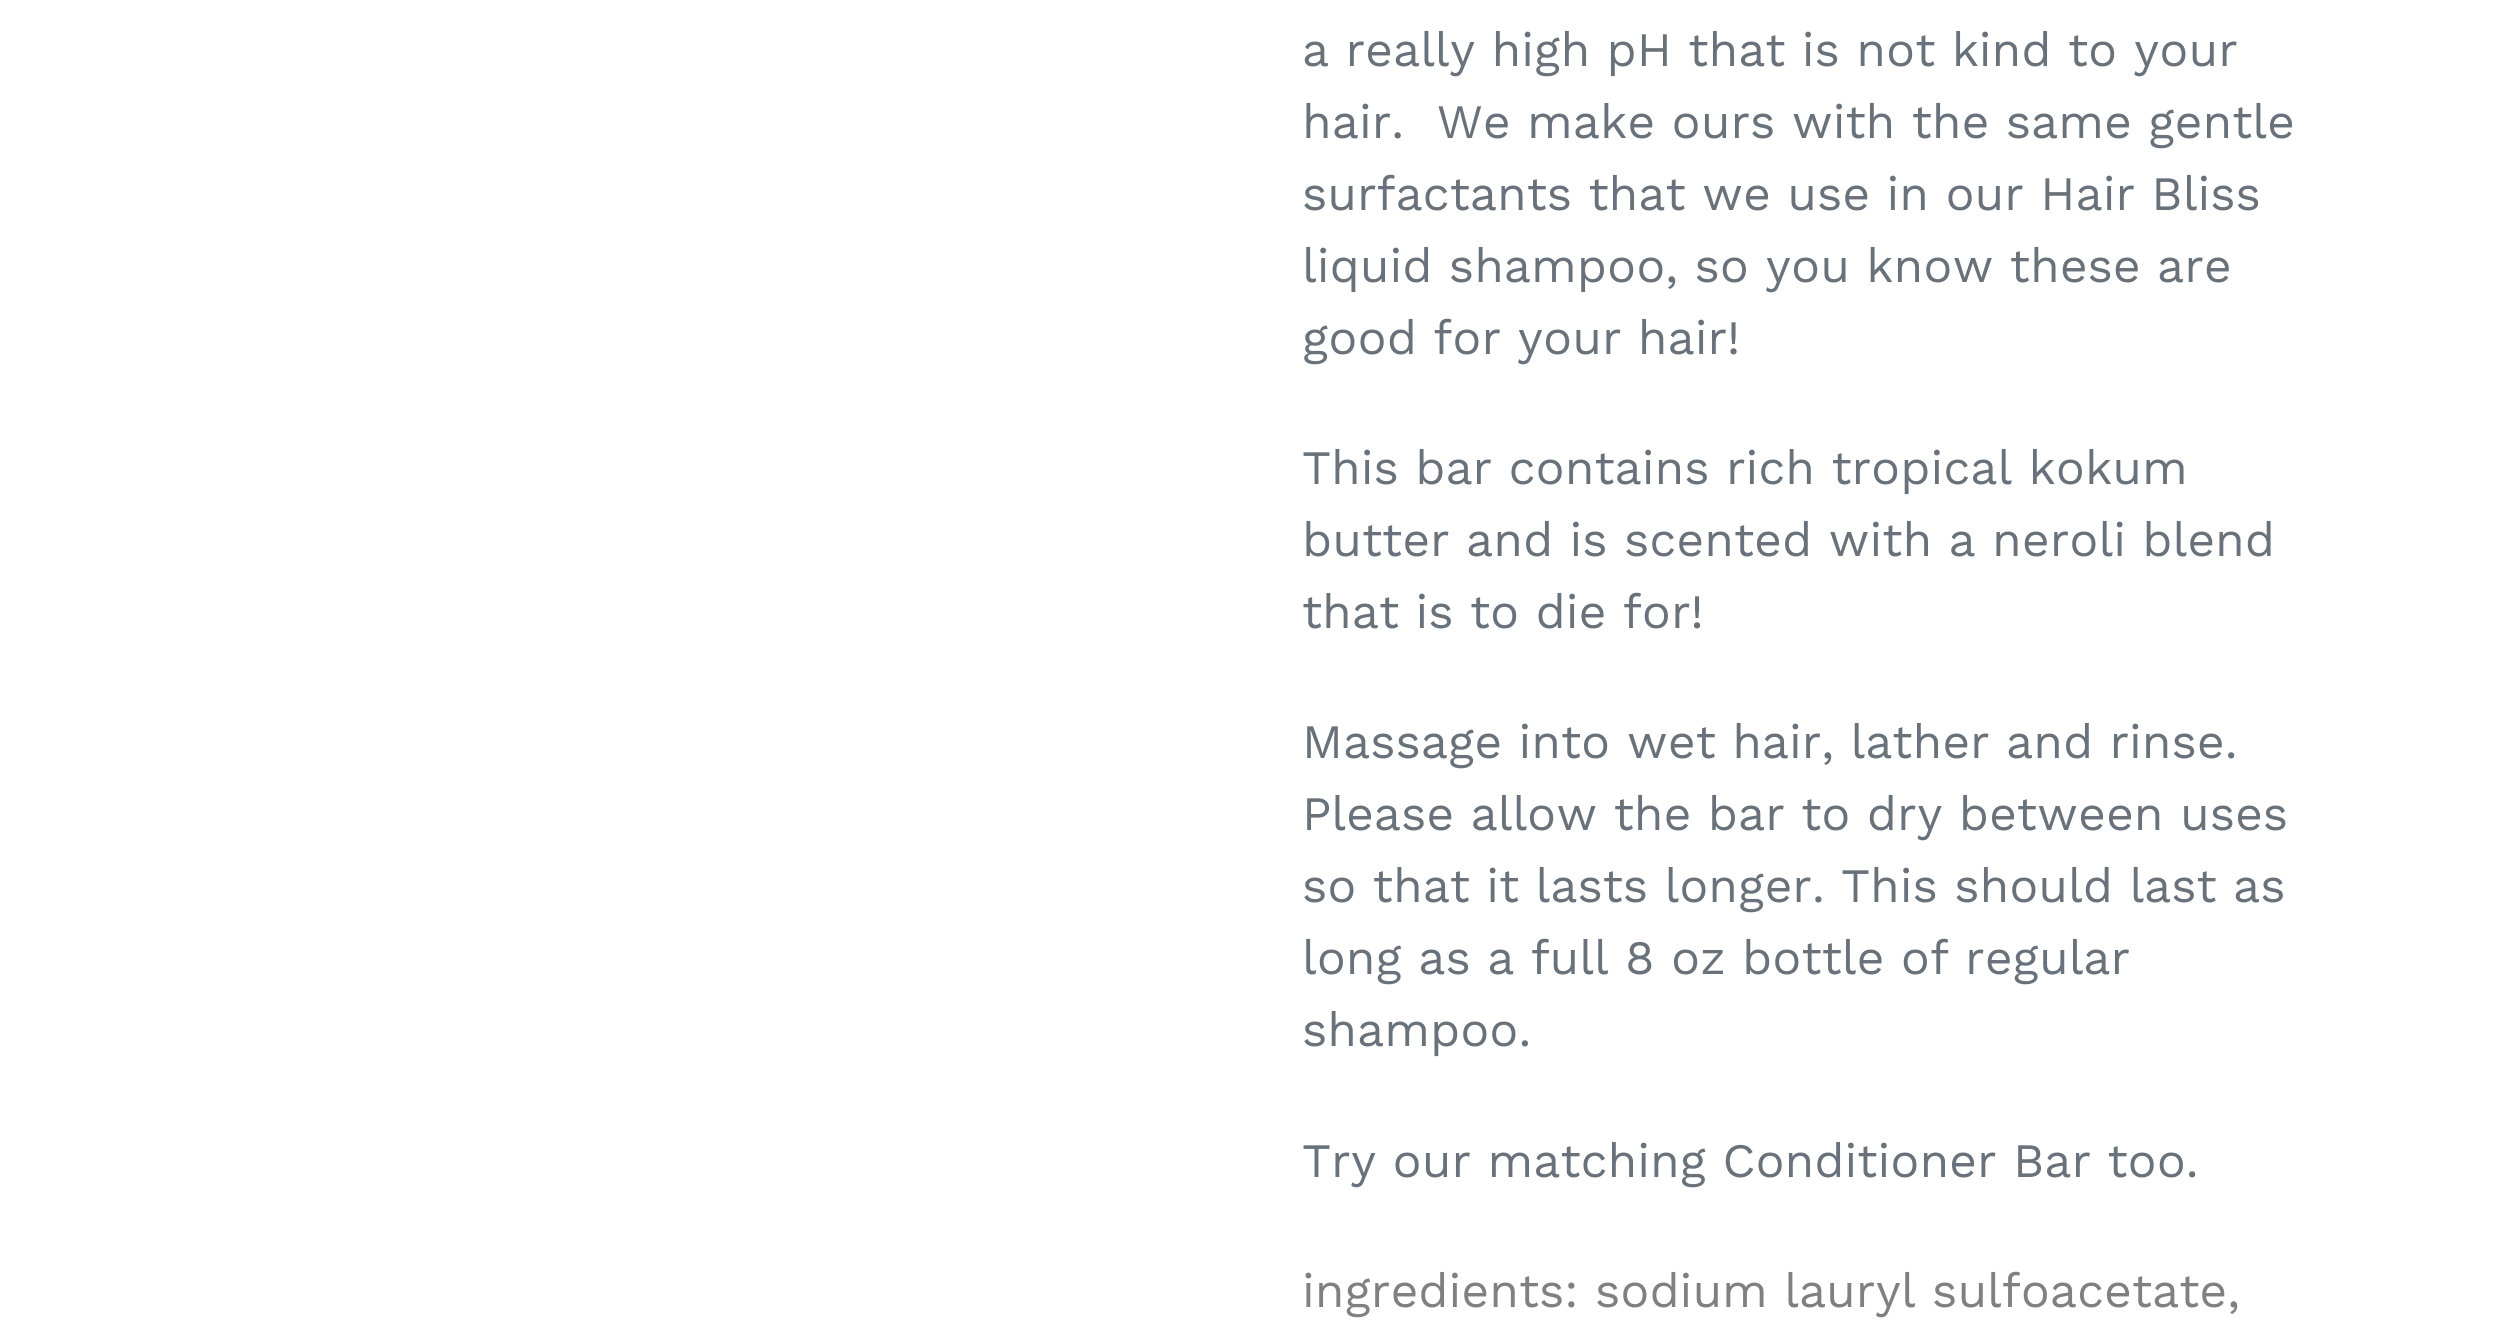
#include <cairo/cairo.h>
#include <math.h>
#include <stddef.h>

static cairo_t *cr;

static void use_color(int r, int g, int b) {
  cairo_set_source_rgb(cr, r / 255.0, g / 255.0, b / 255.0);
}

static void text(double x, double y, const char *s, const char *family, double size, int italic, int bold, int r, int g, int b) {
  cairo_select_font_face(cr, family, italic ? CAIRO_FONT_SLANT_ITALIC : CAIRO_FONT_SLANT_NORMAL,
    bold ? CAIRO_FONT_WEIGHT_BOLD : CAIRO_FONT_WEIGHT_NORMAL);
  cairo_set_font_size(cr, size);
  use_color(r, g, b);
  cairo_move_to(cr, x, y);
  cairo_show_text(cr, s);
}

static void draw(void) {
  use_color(255, 255, 255);
  cairo_paint(cr);
  text(1302, 66, "a really high pH that is not kind to your", "Work Sans", 48, 0, 0, 105, 114, 123);
  text(1302, 138, "hair.  We make ours with the same gentle", "Work Sans", 48, 0, 0, 105, 114, 123);
  text(1302, 210, "surfactants that we use in our Hair Bliss", "Work Sans", 48, 0, 0, 105, 114, 123);
  text(1302, 282, "liquid shampoo, so you know these are", "Work Sans", 48, 0, 0, 105, 114, 123);
  text(1302, 354, "good for your hair!", "Work Sans", 48, 0, 0, 105, 114, 123);
  text(1302, 484, "This bar contains rich tropical kokum", "Work Sans", 48, 0, 0, 105, 114, 123);
  text(1302, 556, "butter and is scented with a neroli blend", "Work Sans", 48, 0, 0, 105, 114, 123);
  text(1302, 628, "that is to die for!", "Work Sans", 48, 0, 0, 105, 114, 123);
  text(1302, 758, "Massage into wet hair, lather and rinse.", "Work Sans", 48, 0, 0, 105, 114, 123);
  text(1302, 830, "Please allow the bar to dry between uses", "Work Sans", 48, 0, 0, 105, 114, 123);
  text(1302, 902, "so that it lasts longer. This should last as", "Work Sans", 48, 0, 0, 105, 114, 123);
  text(1302, 974, "long as a full 8 oz bottle of regular", "Work Sans", 48, 0, 0, 105, 114, 123);
  text(1302, 1046, "shampoo.", "Work Sans", 48, 0, 0, 105, 114, 123);
  text(1302, 1177, "Try our matching Conditioner Bar too.", "Work Sans", 48, 0, 0, 105, 114, 123);
  text(1302, 1307, "ingredients: sodium lauryl sulfoacetate,", "Work Sans", 48, 0, 0, 128, 128, 128);
}

int main(void) {
  cairo_surface_t *surface = cairo_image_surface_create(CAIRO_FORMAT_RGB24, 2514, 1332);
  cr = cairo_create(surface);
  cairo_font_options_t *options = cairo_font_options_create();
  cairo_font_options_set_hint_metrics(options, CAIRO_HINT_METRICS_OFF);
  cairo_font_options_set_hint_style(options, CAIRO_HINT_STYLE_NONE);
  cairo_set_font_options(cr, options);
  cairo_set_miter_limit(cr, 4);
  draw();
  cairo_surface_write_to_png(surface, "out.png");
  cairo_font_options_destroy(options);
  cairo_destroy(cr);
  cairo_surface_destroy(surface);
  return 0;
}
